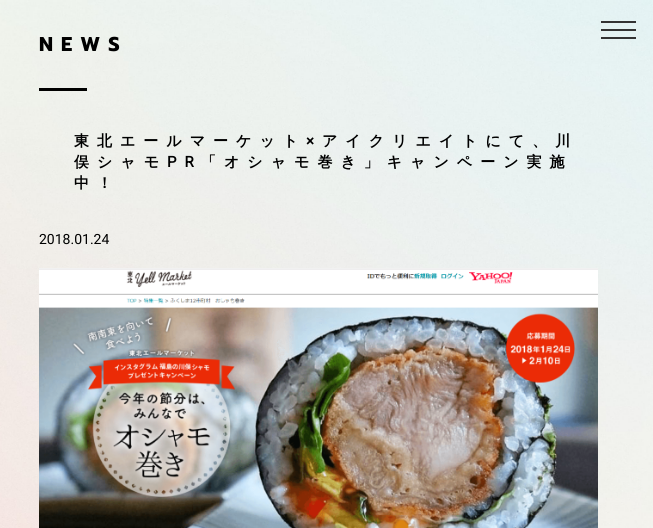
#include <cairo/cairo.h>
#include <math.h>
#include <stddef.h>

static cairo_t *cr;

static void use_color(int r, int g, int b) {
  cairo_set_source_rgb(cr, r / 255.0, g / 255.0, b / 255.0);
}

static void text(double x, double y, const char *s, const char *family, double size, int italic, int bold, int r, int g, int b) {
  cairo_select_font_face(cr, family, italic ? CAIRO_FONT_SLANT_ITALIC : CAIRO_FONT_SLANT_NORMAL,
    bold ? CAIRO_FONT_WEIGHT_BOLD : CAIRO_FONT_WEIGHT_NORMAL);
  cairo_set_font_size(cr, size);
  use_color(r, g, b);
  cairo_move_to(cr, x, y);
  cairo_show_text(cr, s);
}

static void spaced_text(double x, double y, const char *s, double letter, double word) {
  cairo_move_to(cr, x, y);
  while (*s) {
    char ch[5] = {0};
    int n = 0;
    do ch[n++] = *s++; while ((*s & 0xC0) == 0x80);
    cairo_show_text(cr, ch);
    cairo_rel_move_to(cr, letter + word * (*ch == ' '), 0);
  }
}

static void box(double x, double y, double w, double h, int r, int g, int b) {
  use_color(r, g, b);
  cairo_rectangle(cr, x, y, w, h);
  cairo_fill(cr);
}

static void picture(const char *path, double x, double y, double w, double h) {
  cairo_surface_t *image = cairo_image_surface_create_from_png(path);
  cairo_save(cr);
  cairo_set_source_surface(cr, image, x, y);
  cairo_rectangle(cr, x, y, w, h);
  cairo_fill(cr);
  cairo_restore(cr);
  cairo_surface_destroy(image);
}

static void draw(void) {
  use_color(255, 255, 255);
  cairo_paint(cr);
  picture("img_01.png", 0, 0, 653, 528);
  box(601, 21, 35, 2, 51, 51, 51);
  box(601, 29, 35, 2, 51, 51, 51);
  box(601, 37, 35, 2, 51, 51, 51);
  box(39, 88, 48, 3, 0, 0, 0);
  picture("img_02.png", 39, 268, 559, 260);
  cairo_select_font_face(cr, "Prompt", CAIRO_FONT_SLANT_NORMAL, CAIRO_FONT_WEIGHT_BOLD);
  cairo_set_font_size(cr, 20);
  spaced_text(39, 51, "NEWS", 8, 0);
  cairo_select_font_face(cr, "WenQuanYi Zen Hei", CAIRO_FONT_SLANT_NORMAL, CAIRO_FONT_WEIGHT_BOLD);
  cairo_set_font_size(cr, 15);
  spaced_text(74, 146, "東北エールマーケット", 8, 0);
  cairo_select_font_face(cr, "Roboto", CAIRO_FONT_SLANT_NORMAL, CAIRO_FONT_WEIGHT_BOLD);
  spaced_text(306, 146, "×", 8, 0);
  cairo_select_font_face(cr, "WenQuanYi Zen Hei", CAIRO_FONT_SLANT_NORMAL, CAIRO_FONT_WEIGHT_BOLD);
  spaced_text(322, 146, "アイクリエイトにて、川", 8, 0);
  spaced_text(74, 167, "俣シャモ", 8, 0);
  cairo_select_font_face(cr, "Roboto", CAIRO_FONT_SLANT_NORMAL, CAIRO_FONT_WEIGHT_BOLD);
  spaced_text(167, 167, "PR", 8, 0);
  cairo_select_font_face(cr, "WenQuanYi Zen Hei", CAIRO_FONT_SLANT_NORMAL, CAIRO_FONT_WEIGHT_BOLD);
  spaced_text(201, 167, "「オシャモ巻き」キャンペーン実施", 8, 0);
  spaced_text(74, 188, "中！", 8, 0);
  text(39, 244, "2018.01.24", "Roboto", 14, 0, 0, 0, 0, 0);
}

int main(void) {
  cairo_surface_t *surface = cairo_image_surface_create(CAIRO_FORMAT_RGB24, 653, 528);
  cr = cairo_create(surface);
  cairo_font_options_t *options = cairo_font_options_create();
  cairo_font_options_set_hint_metrics(options, CAIRO_HINT_METRICS_OFF);
  cairo_font_options_set_hint_style(options, CAIRO_HINT_STYLE_NONE);
  cairo_set_font_options(cr, options);
  cairo_set_miter_limit(cr, 4);
  draw();
  cairo_surface_write_to_png(surface, "out.png");
  cairo_font_options_destroy(options);
  cairo_destroy(cr);
  cairo_surface_destroy(surface);
  return 0;
}
